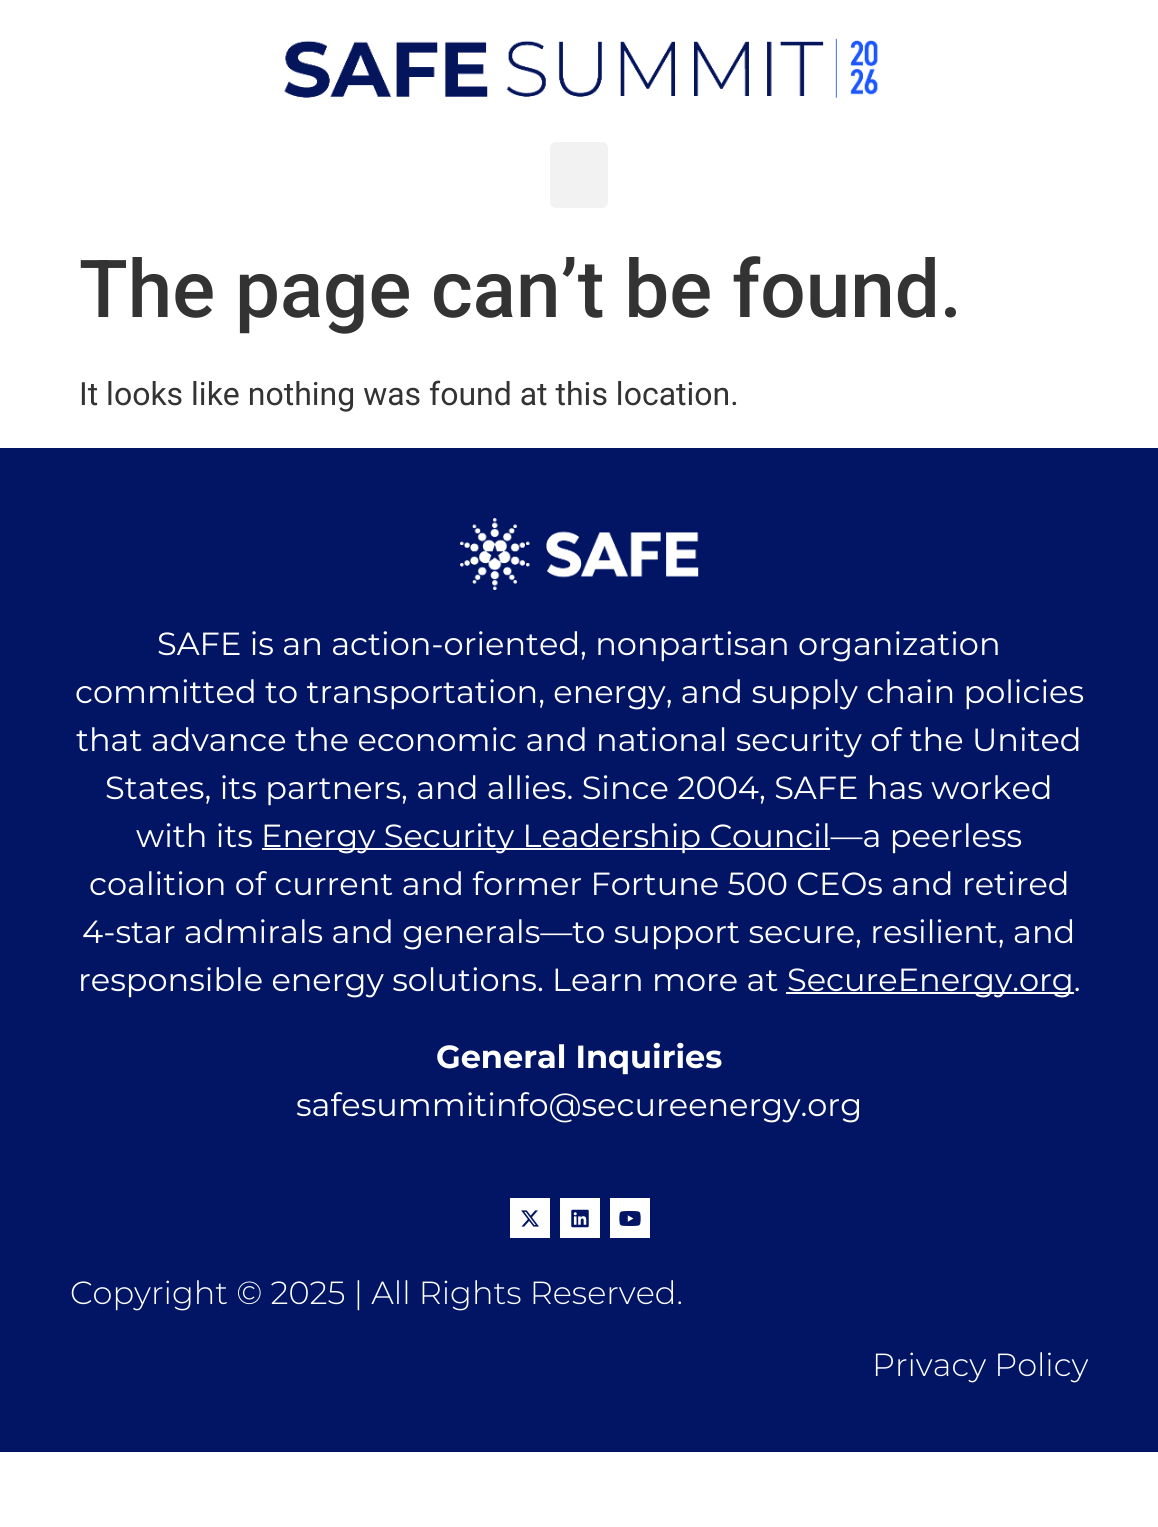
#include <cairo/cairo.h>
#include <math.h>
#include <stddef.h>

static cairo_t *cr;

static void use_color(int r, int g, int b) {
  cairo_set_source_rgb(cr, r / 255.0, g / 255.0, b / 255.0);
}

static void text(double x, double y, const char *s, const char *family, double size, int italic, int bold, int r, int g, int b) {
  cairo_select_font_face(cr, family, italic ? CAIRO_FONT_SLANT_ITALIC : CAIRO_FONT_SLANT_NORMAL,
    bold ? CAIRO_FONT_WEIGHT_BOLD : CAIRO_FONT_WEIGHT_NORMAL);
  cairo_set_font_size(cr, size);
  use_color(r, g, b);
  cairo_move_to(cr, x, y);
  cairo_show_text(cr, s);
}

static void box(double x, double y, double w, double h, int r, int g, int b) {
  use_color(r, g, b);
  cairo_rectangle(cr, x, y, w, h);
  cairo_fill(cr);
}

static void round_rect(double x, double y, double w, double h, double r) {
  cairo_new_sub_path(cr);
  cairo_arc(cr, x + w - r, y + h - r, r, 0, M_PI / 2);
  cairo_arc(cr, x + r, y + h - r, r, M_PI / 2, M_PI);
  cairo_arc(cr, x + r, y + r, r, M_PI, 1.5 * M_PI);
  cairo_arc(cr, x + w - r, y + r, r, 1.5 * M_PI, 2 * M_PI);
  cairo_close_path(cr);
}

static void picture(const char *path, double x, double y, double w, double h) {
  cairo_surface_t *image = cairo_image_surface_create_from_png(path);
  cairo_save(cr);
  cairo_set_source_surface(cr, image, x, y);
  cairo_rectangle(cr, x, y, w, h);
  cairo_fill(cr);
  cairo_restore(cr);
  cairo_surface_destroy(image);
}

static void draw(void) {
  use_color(255, 255, 255);
  cairo_paint(cr);
  picture("img_01.png", 284, 38, 594, 60);
  use_color(242, 242, 242);
  round_rect(550, 142, 58, 66, 6);
  cairo_fill(cr);
  box(0, 448, 1158, 1004, 1, 21, 100);
  picture("img_02.png", 460, 518, 239, 72);
  box(262, 848, 568, 2, 255, 255, 255);
  box(786, 992, 288, 2, 255, 255, 255);
  box(510, 1198, 40, 40, 255, 255, 255);
  picture("img_03.png", 521, 1210, 18, 17);
  box(560, 1198, 40, 40, 255, 255, 255);
  picture("img_04.png", 571, 1209, 18, 19);
  box(610, 1198, 40, 40, 255, 255, 255);
  picture("img_05.png", 619, 1211, 22, 15);
  text(79, 317, "The page can’t be found.", "Roboto Medium", 80, 0, 0, 51, 51, 51);
  text(79, 405, "It looks like nothing was found at this location.", "Roboto", 32, 0, 0, 51, 51, 51);
  text(157, 655, "SAFE is an action-oriented, nonpartisan organization", "Montserrat", 32, 0, 0, 255, 255, 255);
  text(75, 703, "committed to transportation, energy, and supply chain policies", "Montserrat", 32, 0, 0, 255, 255, 255);
  text(76, 751, "that advance the economic and national security of the United", "Montserrat", 32, 0, 0, 255, 255, 255);
  text(105, 799, "States, its partners, and allies. Since 2004, SAFE has worked", "Montserrat", 32, 0, 0, 255, 255, 255);
  text(136, 847, "with its", "Montserrat", 32, 0, 0, 255, 255, 255);
  text(261, 847, "Energy Security Leadership Council—a peerless", "Montserrat", 32, 0, 0, 255, 255, 255);
  text(89, 895, "coalition of current and former Fortune 500 CEOs and retired", "Montserrat", 32, 0, 0, 255, 255, 255);
  text(82, 943, "4-star admirals and generals—to support secure, resilient, and", "Montserrat", 32, 0, 0, 255, 255, 255);
  text(78, 991, "responsible energy solutions. Learn more at", "Montserrat", 32, 0, 0, 255, 255, 255);
  text(787, 991, "SecureEnergy.org.", "Montserrat", 32, 0, 0, 255, 255, 255);
  text(436, 1068, "General Inquiries", "Montserrat", 32, 0, 1, 255, 255, 255);
  text(296, 1116, "safesummitinfo@secureenergy.org", "Montserrat", 32, 0, 0, 255, 255, 255);
  text(70, 1304, "Copyright © 2025 | All Rights Reserved.", "Montserrat Light", 32, 0, 0, 255, 255, 255);
  text(872, 1376, "Privacy Policy", "Montserrat Light", 32, 0, 0, 255, 255, 255);
}

int main(void) {
  cairo_surface_t *surface = cairo_image_surface_create(CAIRO_FORMAT_RGB24, 1158, 1527);
  cr = cairo_create(surface);
  cairo_font_options_t *options = cairo_font_options_create();
  cairo_font_options_set_hint_metrics(options, CAIRO_HINT_METRICS_OFF);
  cairo_font_options_set_hint_style(options, CAIRO_HINT_STYLE_NONE);
  cairo_set_font_options(cr, options);
  cairo_set_miter_limit(cr, 4);
  draw();
  cairo_surface_write_to_png(surface, "out.png");
  cairo_font_options_destroy(options);
  cairo_destroy(cr);
  cairo_surface_destroy(surface);
  return 0;
}
